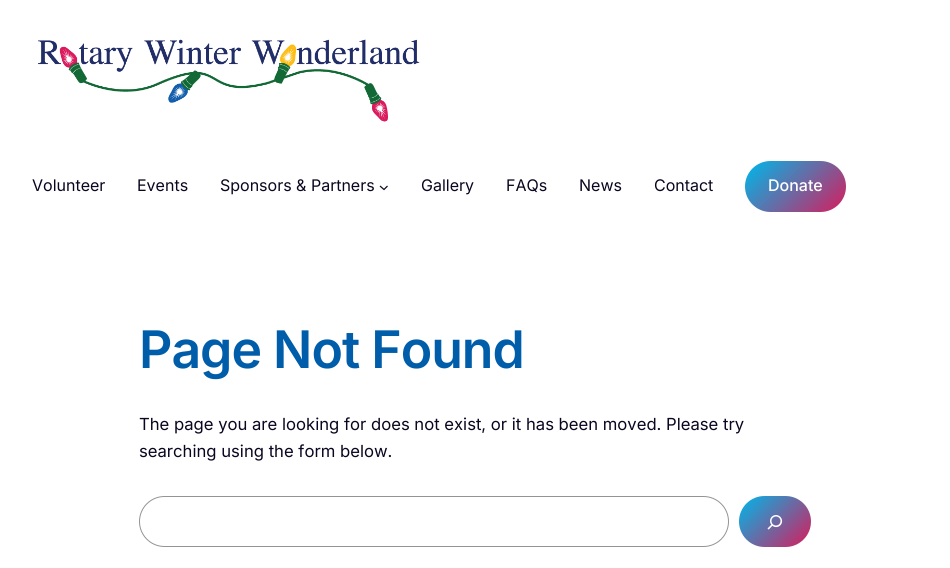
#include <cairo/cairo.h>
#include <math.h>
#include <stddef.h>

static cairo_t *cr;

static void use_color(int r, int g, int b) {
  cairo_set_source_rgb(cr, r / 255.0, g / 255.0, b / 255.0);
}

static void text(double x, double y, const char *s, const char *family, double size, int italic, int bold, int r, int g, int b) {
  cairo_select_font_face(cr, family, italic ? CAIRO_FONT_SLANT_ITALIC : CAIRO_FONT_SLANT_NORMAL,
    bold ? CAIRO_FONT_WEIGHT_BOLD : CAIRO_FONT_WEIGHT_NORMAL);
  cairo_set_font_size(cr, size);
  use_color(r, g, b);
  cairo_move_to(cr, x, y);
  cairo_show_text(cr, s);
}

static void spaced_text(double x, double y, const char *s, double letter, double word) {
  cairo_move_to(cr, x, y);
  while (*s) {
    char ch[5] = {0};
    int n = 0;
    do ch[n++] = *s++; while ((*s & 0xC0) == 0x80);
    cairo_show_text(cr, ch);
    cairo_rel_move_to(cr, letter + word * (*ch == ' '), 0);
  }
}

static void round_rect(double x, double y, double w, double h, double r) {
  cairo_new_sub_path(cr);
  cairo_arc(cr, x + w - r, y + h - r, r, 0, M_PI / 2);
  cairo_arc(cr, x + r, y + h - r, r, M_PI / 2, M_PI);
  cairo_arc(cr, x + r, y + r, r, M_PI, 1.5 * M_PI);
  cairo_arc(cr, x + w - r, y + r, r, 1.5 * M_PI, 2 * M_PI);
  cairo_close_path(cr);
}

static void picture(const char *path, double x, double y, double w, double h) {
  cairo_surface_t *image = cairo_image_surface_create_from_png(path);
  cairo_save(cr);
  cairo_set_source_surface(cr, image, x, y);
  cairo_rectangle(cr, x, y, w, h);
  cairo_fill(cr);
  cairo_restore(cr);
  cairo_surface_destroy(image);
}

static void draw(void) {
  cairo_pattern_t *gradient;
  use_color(255, 255, 255);
  cairo_paint(cr);
  picture("img_01.png", 38, 39, 382, 83);
  cairo_new_path(cr);
  cairo_move_to(cr, 380, 186);
  cairo_line_to(cr, 384, 189.5);
  cairo_line_to(cr, 387.5, 186);
  use_color(11, 6, 32);
  cairo_set_line_width(cr, 1.2);
  cairo_stroke(cr);
  gradient = cairo_pattern_create_linear(758, 149, 834, 225);
  cairo_pattern_add_color_stop_rgba(gradient, 0.03, 0.004, 0.706, 0.906, 1);
  cairo_pattern_add_color_stop_rgba(gradient, 1, 0.851, 0.106, 0.361, 1);
  cairo_set_source(cr, gradient);
  cairo_pattern_destroy(gradient);
  round_rect(745, 161, 101, 51, 25.5);
  cairo_fill(cr);
  round_rect(139.5, 496.5, 589, 50, 25);
  use_color(148, 148, 148);
  cairo_set_line_width(cr, 1);
  cairo_stroke(cr);
  gradient = cairo_pattern_create_linear(744, 491, 806, 552);
  cairo_pattern_add_color_stop_rgba(gradient, 0.03, 0.004, 0.706, 0.906, 1);
  cairo_pattern_add_color_stop_rgba(gradient, 1, 0.851, 0.106, 0.361, 1);
  cairo_set_source(cr, gradient);
  cairo_pattern_destroy(gradient);
  round_rect(739, 496, 72, 51, 25.5);
  cairo_fill(cr);
  picture("img_02.png", 767, 515, 16, 15);
  text(32, 191, "Volunteer", "Inter", 16, 0, 0, 11, 6, 32);
  text(137, 191, "Events", "Inter", 16, 0, 0, 11, 6, 32);
  text(220, 191, "Sponsors & Partners", "Inter", 16, 0, 0, 11, 6, 32);
  text(421, 191, "Gallery", "Inter", 16, 0, 0, 11, 6, 32);
  text(506, 191, "FAQs", "Inter", 16, 0, 0, 11, 6, 32);
  text(579, 191, "News", "Inter", 16, 0, 0, 11, 6, 32);
  text(654, 191, "Contact", "Inter", 16, 0, 0, 11, 6, 32);
  text(768, 191, "Donate", "Inter Medium", 16, 0, 0, 255, 255, 255);
  cairo_select_font_face(cr, "Inter SemiBold", CAIRO_FONT_SLANT_NORMAL, CAIRO_FONT_WEIGHT_NORMAL);
  cairo_set_font_size(cr, 51.75);
  use_color(0, 93, 170);
  spaced_text(139, 368, "Page Not Found", -1, 0);
  text(139, 430, "The page you are looking for does not exist, or it has been moved. Please try", "Inter", 16.65, 0, 0, 11, 6, 32);
  text(139, 457, "searching using the form below.", "Inter", 16.65, 0, 0, 11, 6, 32);
}

int main(void) {
  cairo_surface_t *surface = cairo_image_surface_create(CAIRO_FORMAT_RGB24, 950, 568);
  cr = cairo_create(surface);
  cairo_font_options_t *options = cairo_font_options_create();
  cairo_font_options_set_hint_metrics(options, CAIRO_HINT_METRICS_OFF);
  cairo_font_options_set_hint_style(options, CAIRO_HINT_STYLE_NONE);
  cairo_set_font_options(cr, options);
  cairo_set_miter_limit(cr, 4);
  draw();
  cairo_surface_write_to_png(surface, "out.png");
  cairo_font_options_destroy(options);
  cairo_destroy(cr);
  cairo_surface_destroy(surface);
  return 0;
}
